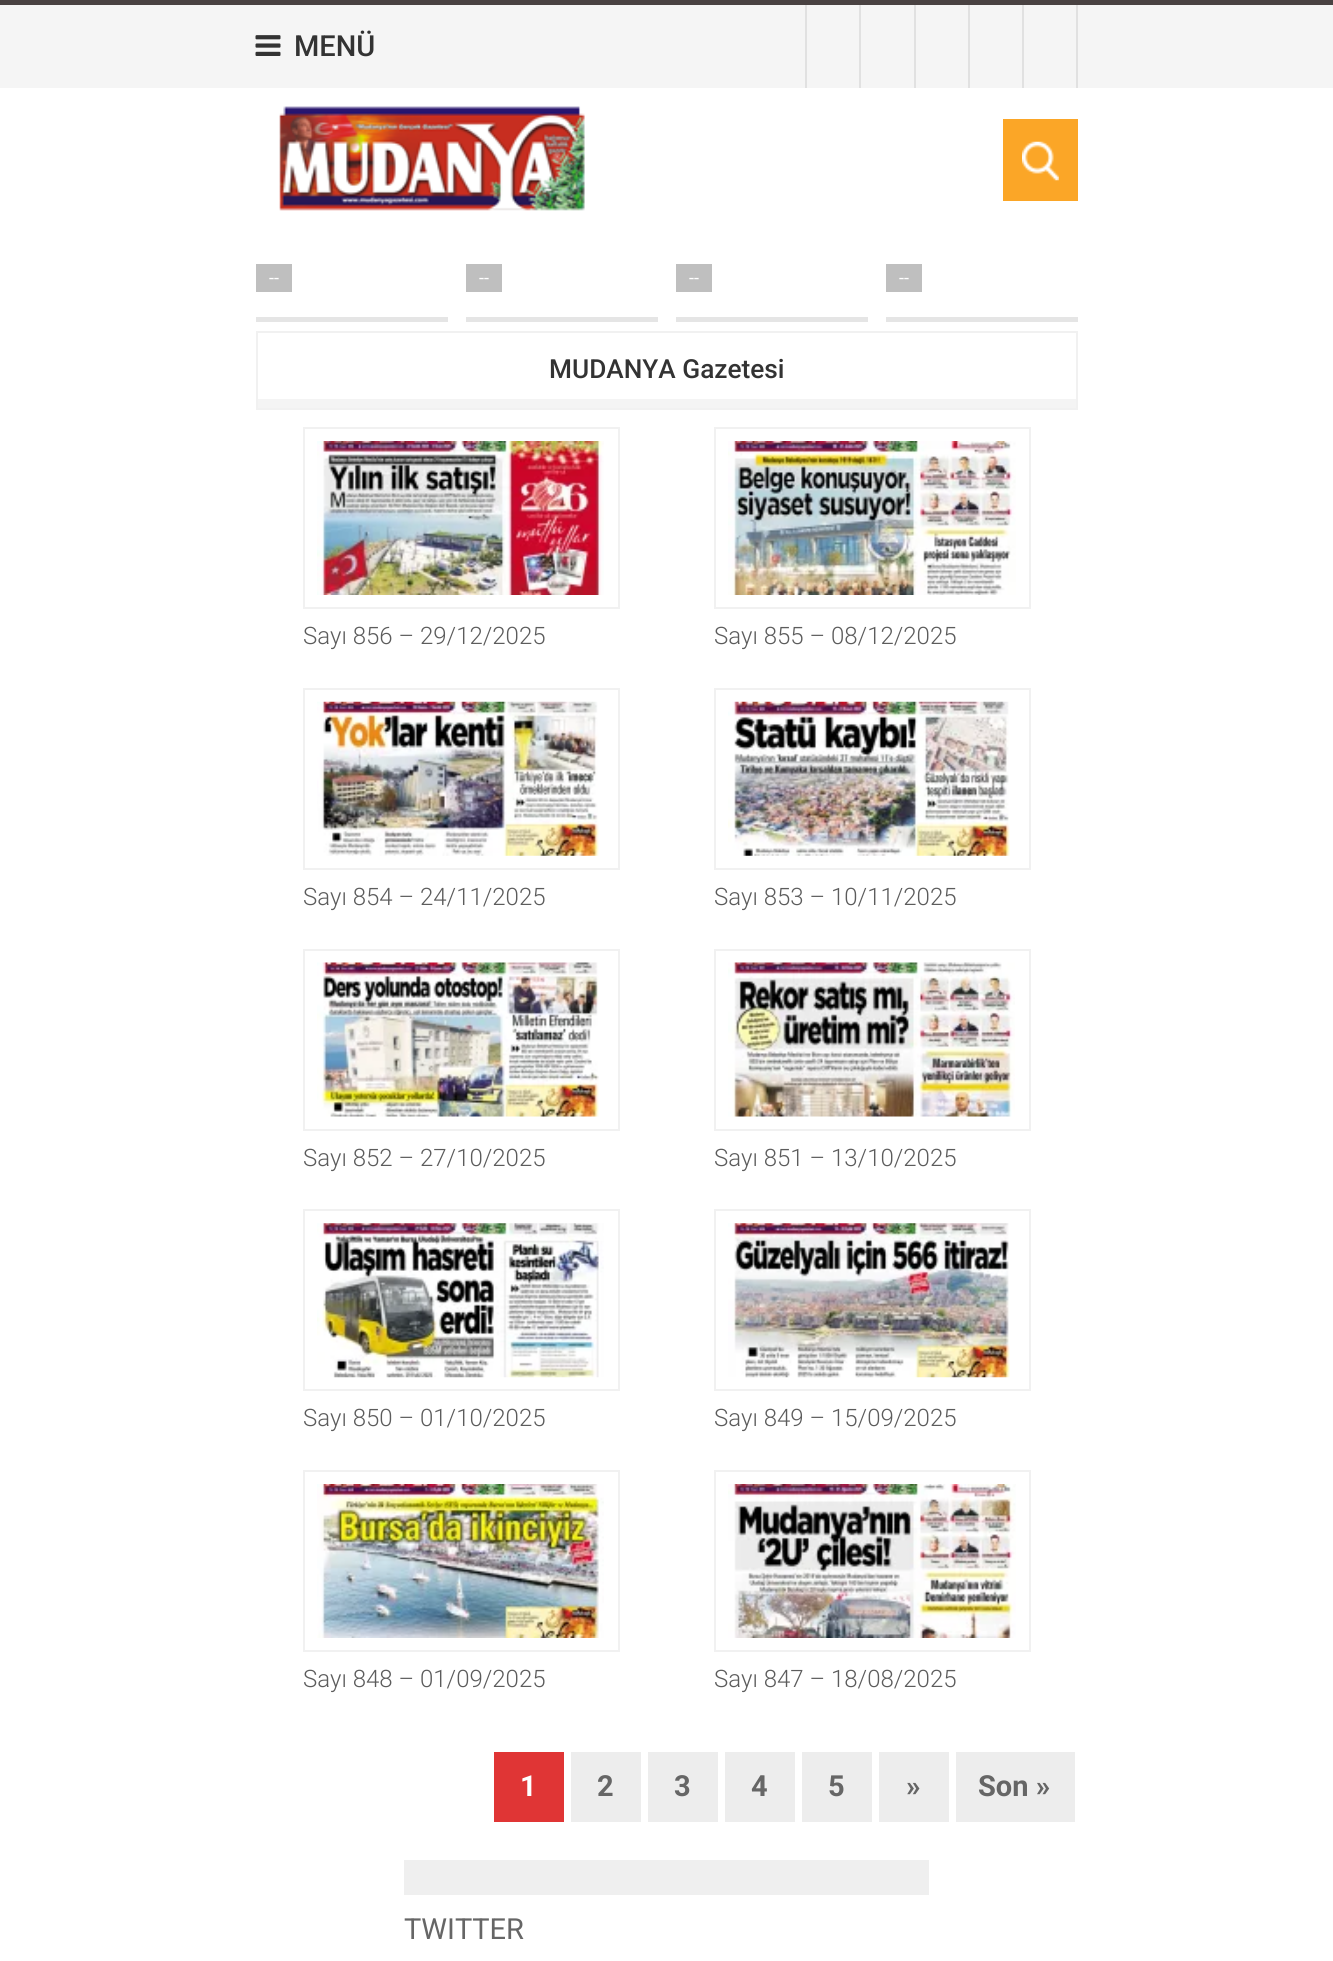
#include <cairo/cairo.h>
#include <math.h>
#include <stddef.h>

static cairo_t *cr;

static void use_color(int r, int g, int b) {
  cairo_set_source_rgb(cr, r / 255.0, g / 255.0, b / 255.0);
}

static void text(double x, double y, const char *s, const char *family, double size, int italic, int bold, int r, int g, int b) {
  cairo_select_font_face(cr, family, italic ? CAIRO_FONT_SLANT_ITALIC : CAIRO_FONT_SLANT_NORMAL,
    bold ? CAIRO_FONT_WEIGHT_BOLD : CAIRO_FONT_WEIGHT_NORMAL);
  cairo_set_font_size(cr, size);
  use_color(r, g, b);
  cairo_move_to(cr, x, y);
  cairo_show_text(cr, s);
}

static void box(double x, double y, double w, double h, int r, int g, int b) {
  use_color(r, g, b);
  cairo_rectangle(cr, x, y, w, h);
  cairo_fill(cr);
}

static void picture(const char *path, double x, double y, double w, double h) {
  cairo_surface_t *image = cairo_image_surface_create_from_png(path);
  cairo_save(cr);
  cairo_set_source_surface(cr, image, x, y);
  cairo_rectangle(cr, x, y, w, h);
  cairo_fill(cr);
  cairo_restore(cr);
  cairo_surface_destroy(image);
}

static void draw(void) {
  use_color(255, 255, 255);
  cairo_paint(cr);
  box(0, 5, 1333, 83, 245, 245, 245);
  box(0, 0, 1333, 5, 73, 66, 66);
  picture("img_01.png", 255, 35, 26, 21);
  box(859, 5, 2, 83, 225, 225, 225);
  box(805, 5, 2, 83, 225, 225, 225);
  box(914, 5, 2, 83, 225, 225, 225);
  box(968, 5, 2, 83, 225, 225, 225);
  box(1022, 5, 2, 83, 225, 225, 225);
  box(1076, 5, 2, 83, 225, 225, 225);
  picture("img_02.png", 279, 106, 306, 105);
  box(1003, 119, 75, 82, 251, 166, 39);
  picture("img_03.png", 1022, 141, 37, 40);
  box(256, 317, 192, 5, 229, 229, 229);
  box(256, 264, 36, 28, 191, 191, 191);
  box(466, 317, 192, 5, 229, 229, 229);
  box(466, 264, 36, 28, 191, 191, 191);
  box(676, 317, 192, 5, 229, 229, 229);
  box(676, 264, 36, 28, 191, 191, 191);
  box(886, 317, 192, 5, 229, 229, 229);
  box(886, 264, 36, 28, 191, 191, 191);
  box(258, 399, 818, 9, 244, 244, 244);
  cairo_rectangle(cr, 257, 332, 820, 77);
  use_color(241, 241, 241);
  cairo_stroke(cr);
  cairo_rectangle(cr, 304, 428, 315, 180);
  cairo_stroke(cr);
  picture("img_04.png", 317, 441, 287, 154);
  cairo_rectangle(cr, 715, 428, 315, 180);
  cairo_stroke(cr);
  picture("img_05.png", 728, 441, 288, 154);
  cairo_rectangle(cr, 304, 689, 315, 180);
  cairo_stroke(cr);
  picture("img_06.png", 317, 701, 282, 155);
  cairo_rectangle(cr, 715, 689, 315, 180);
  cairo_stroke(cr);
  picture("img_07.png", 728, 701, 282, 155);
  cairo_rectangle(cr, 304, 950, 315, 180);
  cairo_stroke(cr);
  picture("img_08.png", 317, 962, 282, 155);
  cairo_rectangle(cr, 715, 950, 315, 180);
  cairo_stroke(cr);
  picture("img_09.png", 728, 962, 287, 155);
  cairo_rectangle(cr, 304, 1210, 315, 180);
  cairo_stroke(cr);
  picture("img_10.png", 317, 1223, 287, 155);
  cairo_rectangle(cr, 715, 1210, 315, 180);
  cairo_stroke(cr);
  picture("img_11.png", 728, 1223, 282, 155);
  cairo_rectangle(cr, 304, 1471, 315, 180);
  cairo_stroke(cr);
  picture("img_12.png", 317, 1484, 287, 154);
  cairo_rectangle(cr, 715, 1471, 315, 180);
  cairo_stroke(cr);
  picture("img_13.png", 728, 1484, 288, 154);
  box(494, 1752, 70, 70, 224, 53, 53);
  box(571, 1752, 70, 70, 237, 237, 237);
  box(648, 1752, 70, 70, 237, 237, 237);
  box(725, 1752, 70, 70, 237, 237, 237);
  box(802, 1752, 70, 70, 237, 237, 237);
  box(879, 1752, 70, 70, 237, 237, 237);
  box(956, 1752, 119, 70, 237, 237, 237);
  box(404, 1860, 525, 35, 239, 239, 239);
  text(294, 56, "MENÜ", "Roboto Medium", 29, 0, 0, 51, 51, 51);
  text(269, 284, "--", "Roboto", 18, 0, 0, 255, 255, 255);
  text(479, 284, "--", "Roboto", 18, 0, 0, 255, 255, 255);
  text(689, 284, "--", "Roboto", 18, 0, 0, 255, 255, 255);
  text(899, 284, "--", "Roboto", 18, 0, 0, 255, 255, 255);
  text(549, 378, "MUDANYA Gazetesi", "Roboto Medium", 26.25, 0, 0, 51, 51, 51);
  text(303, 644, "Sayı 856 – 29/12/2025", "Roboto Light", 24, 0, 0, 92, 92, 92);
  text(714, 644, "Sayı 855 – 08/12/2025", "Roboto Light", 24, 0, 0, 92, 92, 92);
  text(303, 905, "Sayı 854 – 24/11/2025", "Roboto Light", 24, 0, 0, 92, 92, 92);
  text(714, 905, "Sayı 853 – 10/11/2025", "Roboto Light", 24, 0, 0, 92, 92, 92);
  text(303, 1166, "Sayı 852 – 27/10/2025", "Roboto Light", 24, 0, 0, 92, 92, 92);
  text(714, 1166, "Sayı 851 – 13/10/2025", "Roboto Light", 24, 0, 0, 92, 92, 92);
  text(303, 1426, "Sayı 850 – 01/10/2025", "Roboto Light", 24, 0, 0, 92, 92, 92);
  text(714, 1426, "Sayı 849 – 15/09/2025", "Roboto Light", 24, 0, 0, 92, 92, 92);
  text(303, 1687, "Sayı 848 – 01/09/2025", "Roboto Light", 24, 0, 0, 92, 92, 92);
  text(714, 1687, "Sayı 847 – 18/08/2025", "Roboto Light", 24, 0, 0, 92, 92, 92);
  text(520, 1796, "1", "Roboto", 29, 0, 1, 255, 255, 255);
  text(597, 1796, "2", "Roboto", 29, 0, 1, 102, 102, 102);
  text(674, 1796, "3", "Roboto", 29, 0, 1, 102, 102, 102);
  text(751, 1796, "4", "Roboto", 29, 0, 1, 102, 102, 102);
  text(828, 1796, "5", "Roboto", 29, 0, 1, 102, 102, 102);
  text(906, 1796, "»", "Roboto", 29, 0, 1, 102, 102, 102);
  text(978, 1796, "Son »", "Roboto", 29, 0, 1, 102, 102, 102);
  text(404, 1939, "TWITTER", "Roboto", 29, 0, 0, 102, 102, 102);
}

int main(void) {
  cairo_surface_t *surface = cairo_image_surface_create(CAIRO_FORMAT_RGB24, 1333, 1961);
  cr = cairo_create(surface);
  cairo_font_options_t *options = cairo_font_options_create();
  cairo_font_options_set_hint_metrics(options, CAIRO_HINT_METRICS_OFF);
  cairo_font_options_set_hint_style(options, CAIRO_HINT_STYLE_NONE);
  cairo_set_font_options(cr, options);
  cairo_set_miter_limit(cr, 4);
  draw();
  cairo_surface_write_to_png(surface, "out.png");
  cairo_font_options_destroy(options);
  cairo_destroy(cr);
  cairo_surface_destroy(surface);
  return 0;
}
